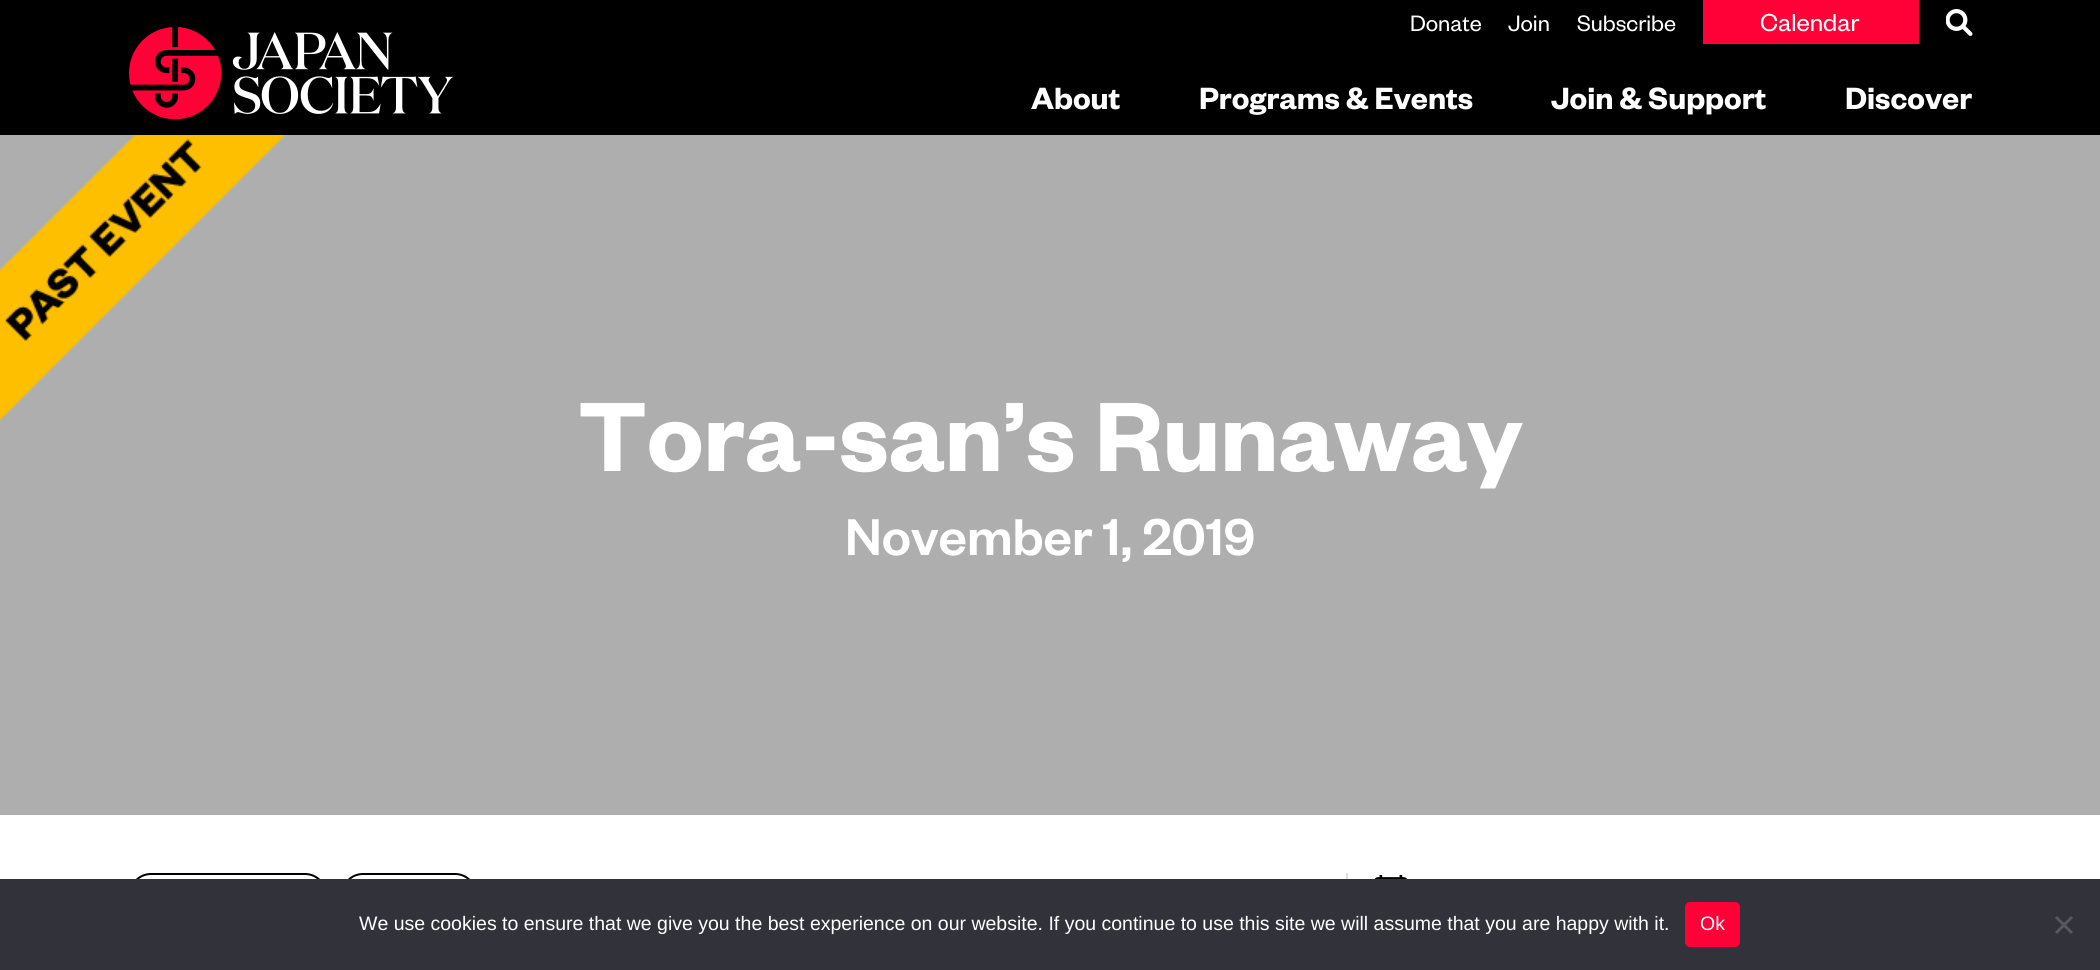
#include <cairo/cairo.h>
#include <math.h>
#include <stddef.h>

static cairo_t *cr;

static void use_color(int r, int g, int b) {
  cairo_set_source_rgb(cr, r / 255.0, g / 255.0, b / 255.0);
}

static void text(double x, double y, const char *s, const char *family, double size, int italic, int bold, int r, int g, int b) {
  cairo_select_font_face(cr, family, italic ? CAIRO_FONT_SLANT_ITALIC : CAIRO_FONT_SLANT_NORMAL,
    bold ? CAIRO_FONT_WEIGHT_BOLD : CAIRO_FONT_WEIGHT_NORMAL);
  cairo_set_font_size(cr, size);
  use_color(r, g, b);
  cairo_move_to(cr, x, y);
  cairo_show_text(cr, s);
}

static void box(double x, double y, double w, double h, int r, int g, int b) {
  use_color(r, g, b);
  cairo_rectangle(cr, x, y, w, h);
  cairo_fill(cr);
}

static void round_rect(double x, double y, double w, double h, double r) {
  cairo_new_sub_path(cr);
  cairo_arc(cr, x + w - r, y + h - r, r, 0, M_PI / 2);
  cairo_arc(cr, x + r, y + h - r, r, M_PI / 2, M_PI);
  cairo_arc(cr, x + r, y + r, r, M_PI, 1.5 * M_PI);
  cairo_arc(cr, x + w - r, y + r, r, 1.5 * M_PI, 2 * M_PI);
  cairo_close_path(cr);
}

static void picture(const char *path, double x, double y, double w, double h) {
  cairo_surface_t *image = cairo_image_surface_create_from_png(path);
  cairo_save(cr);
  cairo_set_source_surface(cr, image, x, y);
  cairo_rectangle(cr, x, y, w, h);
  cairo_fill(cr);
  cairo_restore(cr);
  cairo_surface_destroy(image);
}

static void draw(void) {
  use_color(255, 255, 255);
  cairo_paint(cr);
  box(0, 0, 2100, 135, 0, 0, 0);
  picture("img_01.png", 129, 27, 324, 93);
  box(1703, 0, 216, 44, 255, 0, 55);
  picture("img_02.png", 1946, 9, 27, 27);
  box(0, 135, 2100, 680, 174, 174, 174);
  picture("img_03.png", 0, 135, 285, 285);
  round_rect(130, 874, 196, 42, 21);
  use_color(0, 0, 0);
  cairo_stroke(cr);
  round_rect(342, 874, 134, 42, 21);
  cairo_stroke(cr);
  box(1346, 873, 2, 6, 223, 224, 225);
  picture("img_04.png", 1374, 875, 33, 4);
  box(0, 879, 2100, 91, 50, 50, 58);
  use_color(255, 0, 55);
  round_rect(1685, 902, 55, 45, 5);
  cairo_fill(cr);
  use_color(89, 89, 93);
  cairo_new_path(cr);
  cairo_move_to(cr, 2071, 916);
  cairo_line_to(cr, 2073, 918);
  cairo_line_to(cr, 2057, 934);
  cairo_line_to(cr, 2055, 932);
  cairo_close_path(cr);
  cairo_fill(cr);
  cairo_new_path(cr);
  cairo_move_to(cr, 2055, 918);
  cairo_line_to(cr, 2057, 916);
  cairo_line_to(cr, 2073, 932);
  cairo_line_to(cr, 2071, 934);
  cairo_close_path(cr);
  cairo_fill(cr);
  text(1410, 31, "Donate", "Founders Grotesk", 24.5, 0, 0, 255, 255, 255);
  text(1508, 31, "Join", "Founders Grotesk", 24.5, 0, 0, 255, 255, 255);
  text(1577, 31, "Subscribe", "Founders Grotesk", 24.5, 0, 0, 255, 255, 255);
  text(1760, 31, "Calendar", "Founders Grotesk", 27, 0, 0, 255, 255, 255);
  text(1031, 109, "About", "Founders Grotesk SemiBold", 33.75, 0, 0, 255, 255, 255);
  text(1199, 109, "Programs & Events", "Founders Grotesk SemiBold", 33.75, 0, 0, 255, 255, 255);
  text(1551, 109, "Join & Support", "Founders Grotesk SemiBold", 33.75, 0, 0, 255, 255, 255);
  text(1845, 109, "Discover", "Founders Grotesk SemiBold", 33.75, 0, 0, 255, 255, 255);
  text(578, 471, "Tora-san’s Runaway", "Founders Grotesk SemiBold", 108, 0, 0, 255, 255, 255);
  text(845, 555, "November 1, 2019", "Founders Grotesk Medium", 56.75, 0, 0, 255, 255, 255);
  text(359, 930, "We use cookies to ensure that we give you the best experience on our website. If you continue to use this site we will assume that you are happy with it.", "Liberation Sans", 19.5, 0, 0, 255, 255, 255);
  text(1700, 930, "Ok", "Liberation Sans", 19.5, 0, 0, 255, 255, 255);
}

int main(void) {
  cairo_surface_t *surface = cairo_image_surface_create(CAIRO_FORMAT_RGB24, 2100, 970);
  cr = cairo_create(surface);
  cairo_font_options_t *options = cairo_font_options_create();
  cairo_font_options_set_hint_metrics(options, CAIRO_HINT_METRICS_OFF);
  cairo_font_options_set_hint_style(options, CAIRO_HINT_STYLE_NONE);
  cairo_set_font_options(cr, options);
  cairo_set_miter_limit(cr, 4);
  draw();
  cairo_surface_write_to_png(surface, "out.png");
  cairo_font_options_destroy(options);
  cairo_destroy(cr);
  cairo_surface_destroy(surface);
  return 0;
}
